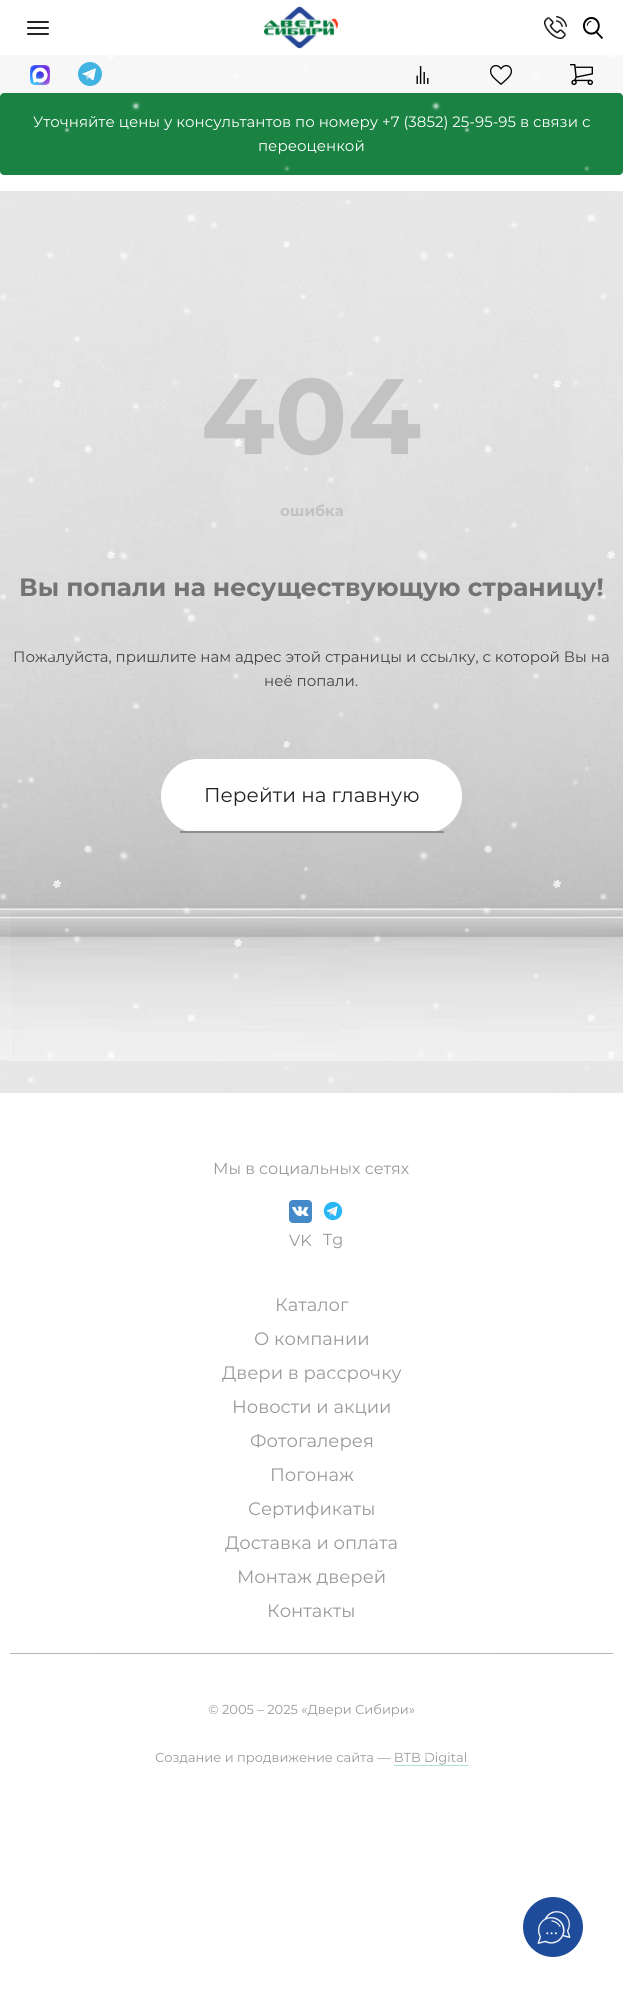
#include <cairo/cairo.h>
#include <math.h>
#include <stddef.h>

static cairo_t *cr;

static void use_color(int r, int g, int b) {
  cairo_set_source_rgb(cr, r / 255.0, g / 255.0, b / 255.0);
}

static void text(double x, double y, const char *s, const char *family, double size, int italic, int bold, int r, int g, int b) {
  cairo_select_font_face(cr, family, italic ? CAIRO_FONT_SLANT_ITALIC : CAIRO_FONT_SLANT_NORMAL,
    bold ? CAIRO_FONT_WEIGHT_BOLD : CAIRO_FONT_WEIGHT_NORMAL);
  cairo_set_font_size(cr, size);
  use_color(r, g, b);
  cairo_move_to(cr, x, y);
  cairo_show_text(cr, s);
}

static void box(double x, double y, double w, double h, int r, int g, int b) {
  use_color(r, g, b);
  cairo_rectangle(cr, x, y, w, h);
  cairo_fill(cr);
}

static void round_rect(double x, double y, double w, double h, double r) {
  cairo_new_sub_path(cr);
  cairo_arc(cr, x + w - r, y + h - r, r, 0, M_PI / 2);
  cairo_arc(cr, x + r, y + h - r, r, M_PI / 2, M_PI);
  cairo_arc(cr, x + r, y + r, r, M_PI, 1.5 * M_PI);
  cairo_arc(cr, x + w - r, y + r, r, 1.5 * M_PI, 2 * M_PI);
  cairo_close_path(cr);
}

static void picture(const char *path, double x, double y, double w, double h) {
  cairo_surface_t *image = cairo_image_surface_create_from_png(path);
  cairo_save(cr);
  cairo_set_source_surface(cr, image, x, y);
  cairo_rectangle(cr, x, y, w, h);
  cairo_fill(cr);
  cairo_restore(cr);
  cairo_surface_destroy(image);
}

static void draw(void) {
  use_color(255, 255, 255);
  cairo_paint(cr);
  use_color(34, 34, 34);
  round_rect(27, 21, 22, 2, 1);
  cairo_fill(cr);
  round_rect(27, 27, 22, 2, 1);
  cairo_fill(cr);
  round_rect(27, 33, 22, 2, 1);
  cairo_fill(cr);
  picture("img_02.png", 263, 6, 75, 43);
  picture("img_03.png", 544, 16, 23, 23);
  picture("img_04.png", 583, 17, 20, 22);
  box(0, 55, 623, 38, 247, 247, 247);
  picture("img_05.png", 30, 65, 20, 20);
  picture("img_06.png", 78, 62, 24, 24);
  picture("img_07.png", 416, 66, 13, 18);
  picture("img_08.png", 490, 65, 22, 20);
  picture("img_09.png", 570, 64, 23, 21);
  use_color(26, 131, 68);
  round_rect(0, 93, 623, 82, 4);
  cairo_fill(cr);
  picture("img_10.png", 0, 191, 623, 902);
  use_color(255, 255, 255);
  round_rect(161, 759, 301, 74, 37);
  cairo_fill(cr);
  box(180, 831, 264, 2, 142, 142, 142);
  picture("img_11.png", 289, 1200, 23, 23);
  picture("img_12.png", 323, 1201, 20, 20);
  box(10, 1653, 603, 1, 180, 180, 180);
  box(394, 1765, 74, 1, 170, 224, 213);
  use_color(31, 76, 154);
  cairo_arc(cr, 553, 1927, 29, 0, 2 * M_PI);
  cairo_fill_preserve(cr);
  cairo_stroke(cr);
  picture("img_13.png", 537, 1911, 34, 33);
  text(33, 127, "Уточняйте цены у консультантов по номеру +7 (3852) 25-95-95 в связи с", "Montserrat", 15, 0, 0, 255, 255, 255);
  text(258, 151, "переоценкой", "Montserrat", 15, 0, 0, 255, 255, 255);
  text(201, 454, "404", "Montserrat", 107, 0, 1, 194, 194, 194);
  text(280, 516, "ошибка", "Montserrat", 15, 0, 1, 194, 194, 194);
  text(19, 596, "Вы попали на несуществующую страницу!", "Montserrat", 25, 0, 1, 115, 115, 115);
  text(13, 662, "Пожалуйста, пришлите нам адрес этой страницы и ссылку, с которой Вы на", "Montserrat", 15, 0, 0, 68, 68, 68);
  text(264, 686, "неё попали.", "Montserrat", 15, 0, 0, 68, 68, 68);
  text(204, 802, "Перейти на главную", "Montserrat", 20, 0, 0, 34, 34, 34);
  text(213, 1174, "Мы в социальных сетях", "Montserrat", 16, 0, 0, 153, 153, 153);
  text(289, 1246, "VK", "Montserrat", 16, 0, 0, 153, 153, 153);
  text(323, 1245, "Tg", "Montserrat", 16, 0, 0, 153, 153, 153);
  text(275, 1311, "Каталог", "Montserrat", 18, 0, 0, 153, 153, 153);
  text(254, 1345, "О компании", "Montserrat", 18, 0, 0, 153, 153, 153);
  text(222, 1379, "Двери в рассрочку", "Montserrat", 18, 0, 0, 153, 153, 153);
  text(232, 1413, "Новости и акции", "Montserrat", 18, 0, 0, 153, 153, 153);
  text(250, 1447, "Фотогалерея", "Montserrat", 18, 0, 0, 153, 153, 153);
  text(270, 1481, "Погонаж", "Montserrat", 18, 0, 0, 153, 153, 153);
  text(248, 1515, "Сертификаты", "Montserrat", 18, 0, 0, 153, 153, 153);
  text(225, 1549, "Доставка и оплата", "Montserrat", 18, 0, 0, 153, 153, 153);
  text(237, 1583, "Монтаж дверей", "Montserrat", 18, 0, 0, 153, 153, 153);
  text(267, 1617, "Контакты", "Montserrat", 18, 0, 0, 153, 153, 153);
  text(208, 1714, "© 2005 – 2025 «Двери Сибири»", "Montserrat", 13, 0, 0, 153, 153, 153);
  text(155, 1762, "Создание и продвижение сайта — BTB Digital", "Montserrat", 13, 0, 0, 153, 153, 153);
  picture("img_01.png", 0, 55, 615, 1706);
}

int main(void) {
  cairo_surface_t *surface = cairo_image_surface_create(CAIRO_FORMAT_RGB24, 623, 1997);
  cr = cairo_create(surface);
  cairo_font_options_t *options = cairo_font_options_create();
  cairo_font_options_set_hint_metrics(options, CAIRO_HINT_METRICS_OFF);
  cairo_font_options_set_hint_style(options, CAIRO_HINT_STYLE_NONE);
  cairo_set_font_options(cr, options);
  cairo_set_miter_limit(cr, 4);
  draw();
  cairo_surface_write_to_png(surface, "out.png");
  cairo_font_options_destroy(options);
  cairo_destroy(cr);
  cairo_surface_destroy(surface);
  return 0;
}
